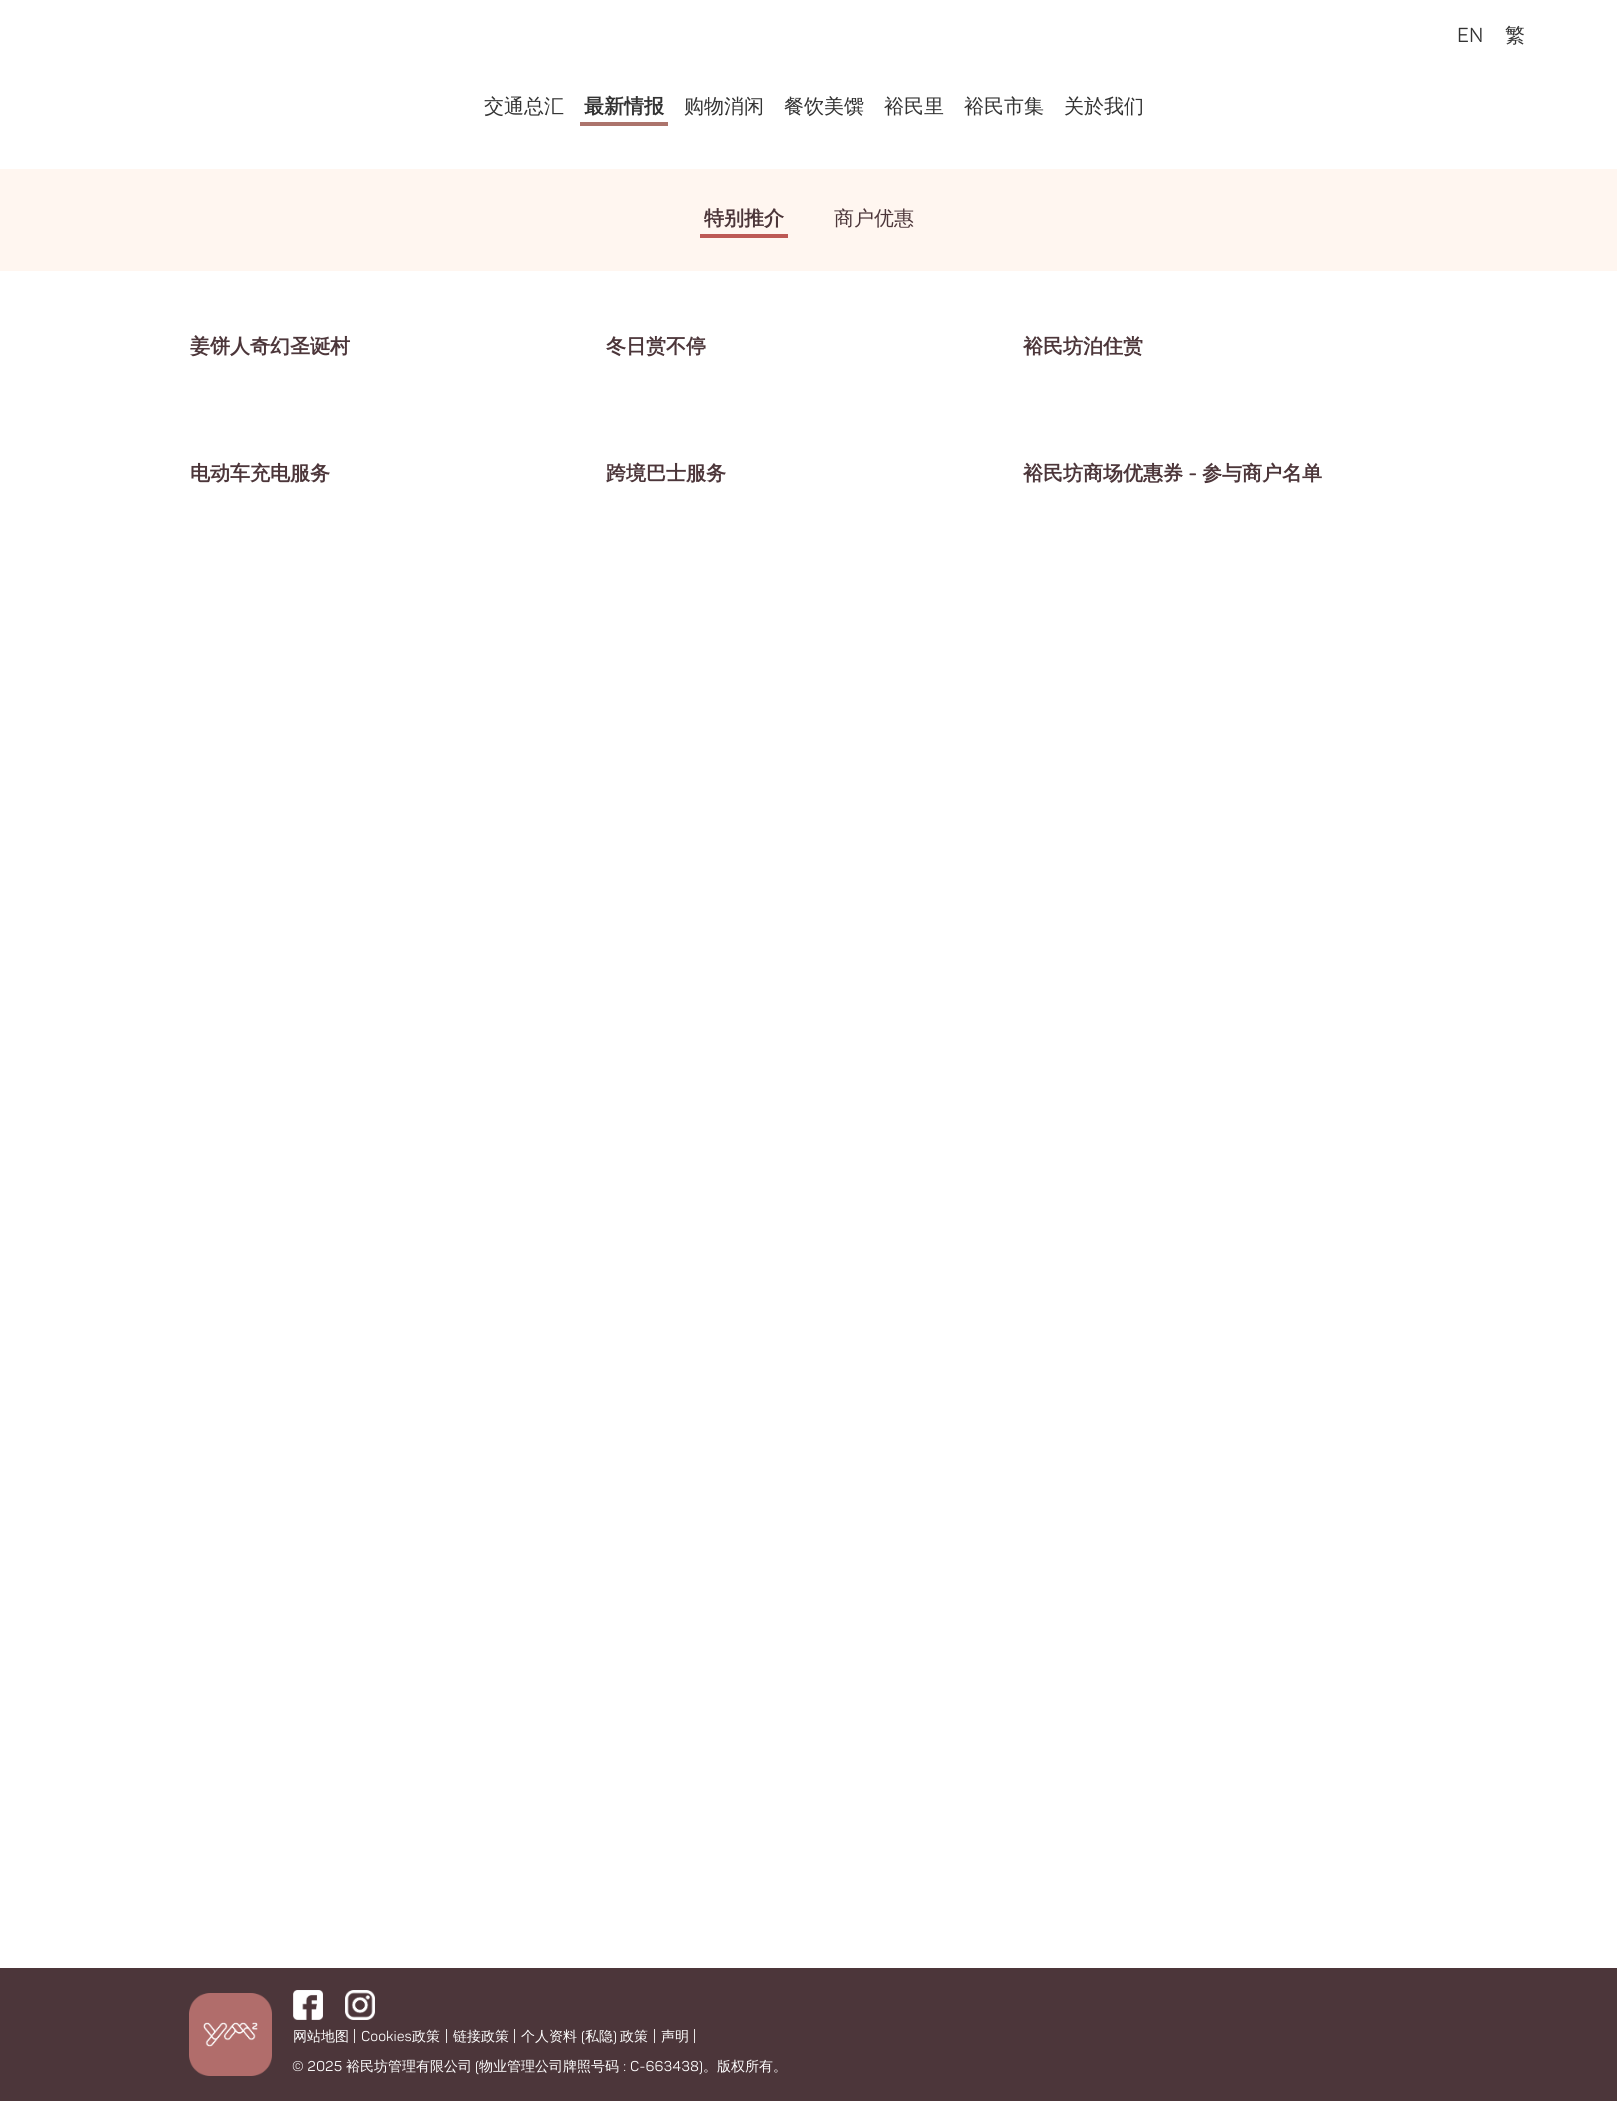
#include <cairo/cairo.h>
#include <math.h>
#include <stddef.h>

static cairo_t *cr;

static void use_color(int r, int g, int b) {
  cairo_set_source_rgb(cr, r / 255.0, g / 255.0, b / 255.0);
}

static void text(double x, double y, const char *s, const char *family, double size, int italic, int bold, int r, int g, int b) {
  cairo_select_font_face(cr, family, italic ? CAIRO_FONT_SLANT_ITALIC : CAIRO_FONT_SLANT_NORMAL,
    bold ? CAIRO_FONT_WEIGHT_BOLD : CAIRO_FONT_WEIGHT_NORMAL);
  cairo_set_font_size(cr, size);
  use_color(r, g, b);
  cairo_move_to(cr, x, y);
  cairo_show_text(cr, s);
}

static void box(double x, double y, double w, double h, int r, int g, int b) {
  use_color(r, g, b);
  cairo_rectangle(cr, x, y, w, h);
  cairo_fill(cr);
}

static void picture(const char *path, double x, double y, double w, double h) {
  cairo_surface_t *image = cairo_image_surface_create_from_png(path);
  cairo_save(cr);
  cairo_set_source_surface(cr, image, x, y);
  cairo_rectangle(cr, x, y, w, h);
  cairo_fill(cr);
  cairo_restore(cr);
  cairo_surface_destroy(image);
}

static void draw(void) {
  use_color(255, 255, 255);
  cairo_paint(cr);
  box(580, 122, 88, 4, 172, 116, 108);
  box(0, 169, 1617, 102, 255, 246, 240);
  box(700, 234, 88, 4, 189, 89, 85);
  box(0, 1968, 1617, 133, 76, 54, 58);
  picture("img_01.png", 189, 1993, 83, 83);
  picture("img_02.png", 293, 1990, 30, 30);
  picture("img_03.png", 345, 1990, 30, 30);
  text(1457, 42, "EN", "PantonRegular", 20, 0, 0, 51, 51, 51);
  text(1505, 42, "繁", "WenQuanYi Zen Hei Medium", 20, 0, 0, 51, 51, 51);
  text(484, 113, "交通总汇", "WenQuanYi Zen Hei Medium", 20, 0, 0, 51, 51, 51);
  text(584, 113, "最新情报", "WenQuanYi Zen Hei", 20, 0, 1, 51, 51, 51);
  text(684, 113, "购物消闲", "WenQuanYi Zen Hei Medium", 20, 0, 0, 51, 51, 51);
  text(784, 113, "餐饮美馔", "WenQuanYi Zen Hei Medium", 20, 0, 0, 51, 51, 51);
  text(884, 113, "裕民里", "WenQuanYi Zen Hei Medium", 20, 0, 0, 51, 51, 51);
  text(964, 113, "裕民市集", "WenQuanYi Zen Hei Medium", 20, 0, 0, 51, 51, 51);
  text(1064, 113, "关於我们", "WenQuanYi Zen Hei Medium", 20, 0, 0, 51, 51, 51);
  text(704, 225, "特别推介", "WenQuanYi Zen Hei", 20, 0, 1, 76, 54, 58);
  text(834, 225, "商户优惠", "WenQuanYi Zen Hei Medium", 20, 0, 0, 76, 54, 58);
  text(190, 353, "姜饼人奇幻圣诞村", "WenQuanYi Zen Hei", 20, 0, 1, 76, 54, 58);
  text(606, 353, "冬日赏不停", "WenQuanYi Zen Hei", 20, 0, 1, 76, 54, 58);
  text(1023, 353, "裕民坊泊住赏", "WenQuanYi Zen Hei", 20, 0, 1, 76, 54, 58);
  text(190, 480, "电动车充电服务", "WenQuanYi Zen Hei", 20, 0, 1, 76, 54, 58);
  text(606, 480, "跨境巴士服务", "WenQuanYi Zen Hei", 20, 0, 1, 76, 54, 58);
  text(1023, 480, "裕民坊商场优惠券", "WenQuanYi Zen Hei", 20, 0, 1, 76, 54, 58);
  text(1188, 480, "-", "PantonRegular", 20, 0, 1, 76, 54, 58);
  text(1202, 480, "参与商户名单", "WenQuanYi Zen Hei", 20, 0, 1, 76, 54, 58);
  text(293, 2041, "网站地图", "WenQuanYi Zen Hei Medium", 14, 0, 0, 255, 255, 255);
  text(353, 2041, "|", "PantonRegular", 14, 0, 0, 255, 255, 255);
  text(361, 2041, "Cookies", "PantonRegular", 14, 0, 0, 255, 255, 255);
  text(412, 2041, "政策", "WenQuanYi Zen Hei Medium", 14, 0, 0, 255, 255, 255);
  text(445, 2041, "|", "PantonRegular", 14, 0, 0, 255, 255, 255);
  text(453, 2041, "链接政策", "WenQuanYi Zen Hei Medium", 14, 0, 0, 255, 255, 255);
  text(513, 2041, "|", "PantonRegular", 14, 0, 0, 255, 255, 255);
  text(521, 2041, "个人资料", "WenQuanYi Zen Hei Medium", 14, 0, 0, 255, 255, 255);
  text(581, 2041, "(", "PantonRegular", 14, 0, 0, 255, 255, 255);
  text(585, 2041, "私隐", "WenQuanYi Zen Hei Medium", 14, 0, 0, 255, 255, 255);
  text(613, 2041, ")", "PantonRegular", 14, 0, 0, 255, 255, 255);
  text(620, 2041, "政策", "WenQuanYi Zen Hei Medium", 14, 0, 0, 255, 255, 255);
  text(653, 2041, "|", "PantonRegular", 14, 0, 0, 255, 255, 255);
  text(661, 2041, "声明", "WenQuanYi Zen Hei Medium", 14, 0, 0, 255, 255, 255);
  text(693, 2041, "|", "PantonRegular", 14, 0, 0, 255, 255, 255);
  text(292, 2071, "© 2025", "PantonRegular", 14, 0, 0, 255, 255, 255);
  text(346, 2071, "裕民坊管理有限公司", "WenQuanYi Zen Hei Medium", 14, 0, 0, 255, 255, 255);
  text(475, 2071, "(", "PantonRegular", 14, 0, 0, 255, 255, 255);
  text(479, 2071, "物业管理公司牌照号码", "WenQuanYi Zen Hei Medium", 14, 0, 0, 255, 255, 255);
  text(623, 2071, ": C-663438)", "PantonRegular", 14, 0, 0, 255, 255, 255);
  text(703, 2071, "。版权所有。", "WenQuanYi Zen Hei Medium", 14, 0, 0, 255, 255, 255);
}

int main(void) {
  cairo_surface_t *surface = cairo_image_surface_create(CAIRO_FORMAT_RGB24, 1617, 2101);
  cr = cairo_create(surface);
  cairo_font_options_t *options = cairo_font_options_create();
  cairo_font_options_set_hint_metrics(options, CAIRO_HINT_METRICS_OFF);
  cairo_font_options_set_hint_style(options, CAIRO_HINT_STYLE_NONE);
  cairo_set_font_options(cr, options);
  cairo_set_miter_limit(cr, 4);
  draw();
  cairo_surface_write_to_png(surface, "out.png");
  cairo_font_options_destroy(options);
  cairo_destroy(cr);
  cairo_surface_destroy(surface);
  return 0;
}
